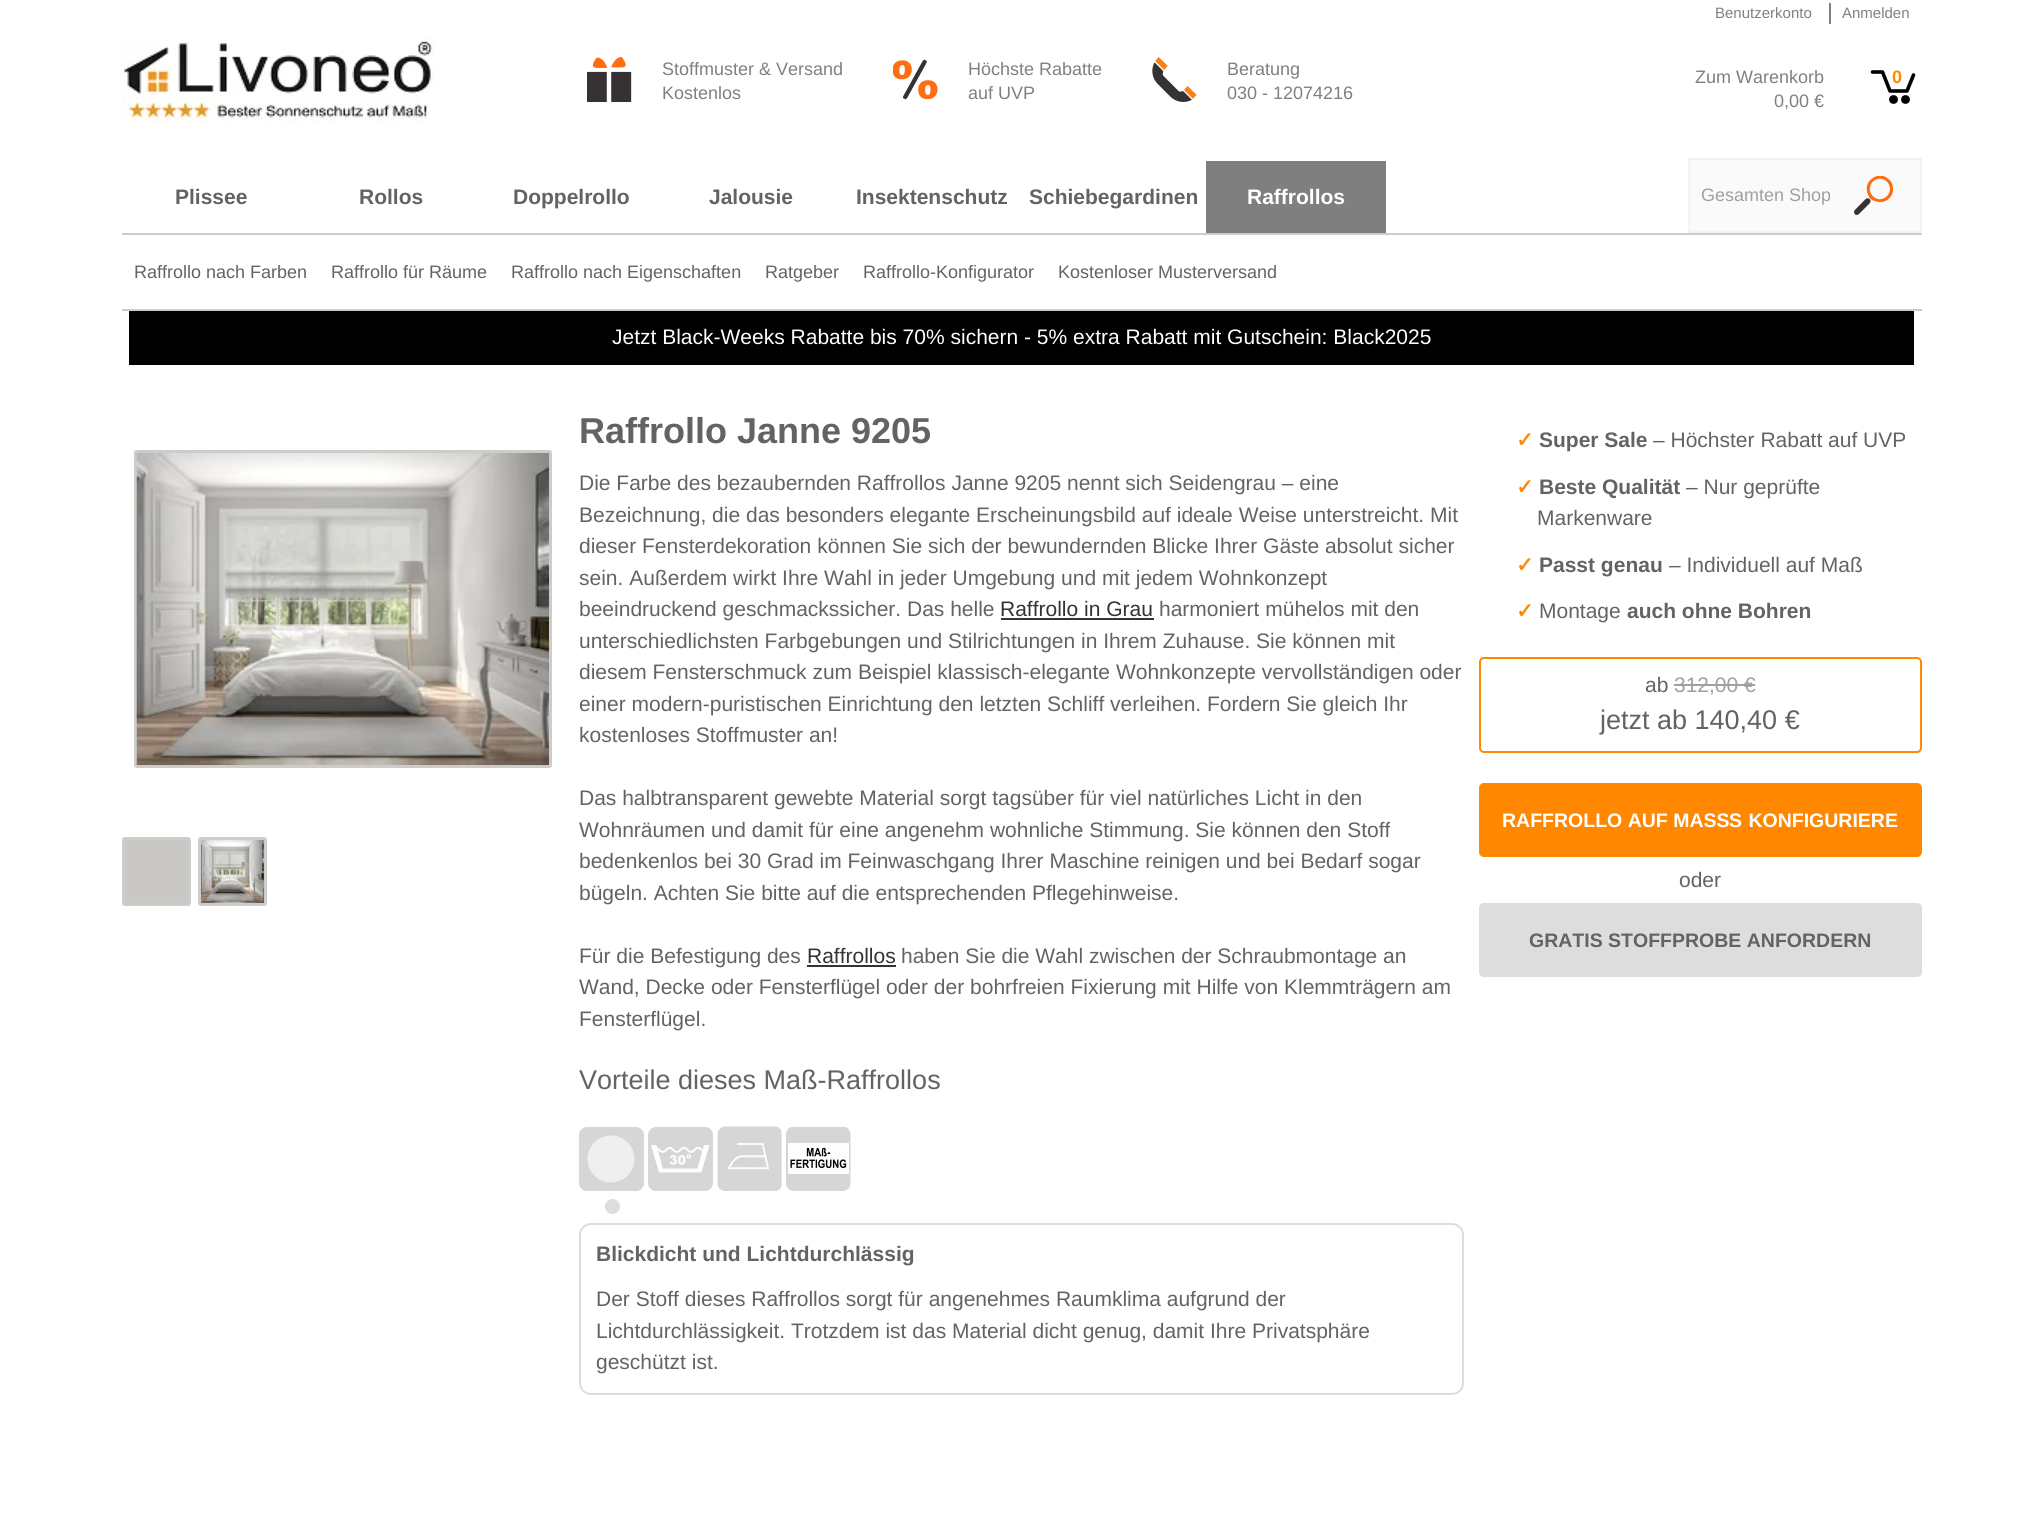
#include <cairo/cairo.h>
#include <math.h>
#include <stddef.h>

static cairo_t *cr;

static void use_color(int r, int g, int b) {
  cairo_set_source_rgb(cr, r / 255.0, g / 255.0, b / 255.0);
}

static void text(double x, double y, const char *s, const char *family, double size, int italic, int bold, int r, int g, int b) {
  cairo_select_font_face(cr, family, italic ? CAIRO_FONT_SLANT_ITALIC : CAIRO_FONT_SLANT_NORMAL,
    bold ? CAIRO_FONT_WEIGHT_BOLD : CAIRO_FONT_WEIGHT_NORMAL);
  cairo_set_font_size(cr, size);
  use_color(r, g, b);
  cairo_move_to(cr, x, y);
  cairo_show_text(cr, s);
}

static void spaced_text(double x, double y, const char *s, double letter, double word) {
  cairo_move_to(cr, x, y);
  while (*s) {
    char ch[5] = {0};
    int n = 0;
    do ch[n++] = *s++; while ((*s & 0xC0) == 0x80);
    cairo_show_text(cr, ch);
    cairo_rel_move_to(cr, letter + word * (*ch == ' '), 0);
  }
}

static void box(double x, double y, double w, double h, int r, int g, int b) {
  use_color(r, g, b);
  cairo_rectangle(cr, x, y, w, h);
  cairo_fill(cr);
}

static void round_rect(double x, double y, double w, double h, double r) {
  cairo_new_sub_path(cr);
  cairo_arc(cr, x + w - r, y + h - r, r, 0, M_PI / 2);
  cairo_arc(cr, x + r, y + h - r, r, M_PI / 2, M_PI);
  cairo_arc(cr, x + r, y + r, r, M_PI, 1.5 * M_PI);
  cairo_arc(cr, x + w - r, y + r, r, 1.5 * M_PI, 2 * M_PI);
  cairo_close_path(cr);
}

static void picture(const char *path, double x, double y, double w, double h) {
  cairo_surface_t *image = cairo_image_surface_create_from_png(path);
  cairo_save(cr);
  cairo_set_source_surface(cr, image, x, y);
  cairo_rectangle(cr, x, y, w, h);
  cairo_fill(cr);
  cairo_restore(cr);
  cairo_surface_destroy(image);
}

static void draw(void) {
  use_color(255, 255, 255);
  cairo_paint(cr);
  box(1829, 3, 2, 21, 128, 128, 128);
  picture("img_01.png", 121, 37, 313, 86);
  picture("img_02.png", 587, 57, 45, 45);
  picture("img_03.png", 893, 59, 45, 41);
  picture("img_04.png", 1152, 57, 45, 45);
  cairo_new_path(cr);
  cairo_move_to(cr, 1872.5, 72);
  cairo_line_to(cr, 1882.5, 72);
  cairo_move_to(cr, 1882.5, 72);
  cairo_line_to(cr, 1890, 91);
  cairo_move_to(cr, 1890, 91);
  cairo_line_to(cr, 1907, 91);
  cairo_move_to(cr, 1907, 91);
  cairo_line_to(cr, 1913.5, 75);
  use_color(1, 1, 3);
  cairo_set_line_width(cr, 3.6);
  cairo_set_line_cap(cr, CAIRO_LINE_CAP_ROUND);
  cairo_stroke(cr);
  cairo_arc(cr, 1893.5, 99.5, 3.5, 0, 2 * M_PI);
  cairo_fill_preserve(cr);
  cairo_set_line_width(cr, 1.8);
  cairo_set_line_cap(cr, CAIRO_LINE_CAP_BUTT);
  cairo_stroke(cr);
  cairo_arc(cr, 1905.5, 99.5, 3.5, 0, 2 * M_PI);
  cairo_fill_preserve(cr);
  cairo_stroke(cr);
  box(1206, 161, 180, 72, 127, 127, 127);
  box(122, 233, 1800, 2, 204, 204, 204);
  box(122, 309, 1800, 2, 204, 204, 204);
  use_color(250, 250, 250);
  cairo_rectangle(cr, 1689, 159, 232, 73);
  cairo_fill_preserve(cr);
  use_color(243, 243, 243);
  cairo_set_line_width(cr, 2);
  cairo_stroke(cr);
  picture("img_05.png", 1854, 176, 39, 39);
  box(129, 311, 1785, 54, 0, 0, 0);
  round_rect(135.5, 451.5, 415, 315, 1.5);
  use_color(204, 204, 204);
  cairo_set_line_width(cr, 3);
  cairo_stroke(cr);
  picture("img_06.png", 136, 453, 413, 312);
  round_rect(123.5, 838.5, 66, 66, 1.5);
  cairo_stroke(cr);
  box(125, 840, 63, 63, 202, 200, 196);
  round_rect(199.5, 838.5, 66, 66, 1.5);
  use_color(204, 204, 204);
  cairo_stroke(cr);
  picture("img_07.png", 201, 840, 63, 63);
  round_rect(1480, 658, 441, 94, 4);
  use_color(255, 136, 1);
  cairo_set_line_width(cr, 2);
  cairo_stroke(cr);
  box(1674, 684, 81, 2, 160, 160, 160);
  use_color(255, 136, 0);
  round_rect(1479, 783, 443, 74, 5);
  cairo_fill(cr);
  use_color(221, 221, 221);
  round_rect(1479, 903, 443, 74, 5);
  cairo_fill(cr);
  box(1001, 618, 153, 2, 51, 51, 51);
  box(807, 965, 89, 2, 51, 51, 51);
  use_color(214, 214, 214);
  round_rect(579, 1127, 65, 64, 8);
  cairo_fill(cr);
  use_color(239, 239, 239);
  cairo_arc(cr, 611, 1159, 23.5, 0, 2 * M_PI);
  cairo_fill(cr);
  use_color(221, 221, 221);
  cairo_arc(cr, 612.5, 1206.5, 7.5, 0, 2 * M_PI);
  cairo_fill(cr);
  picture("img_08.png", 648, 1127, 65, 64);
  picture("img_09.png", 717, 1126, 65, 65);
  picture("img_10.png", 786, 1127, 65, 64);
  round_rect(580, 1224, 883, 170, 11);
  cairo_stroke(cr);
  text(1715, 18, "Benutzerkonto", "Liberation Sans", 15, 0, 0, 128, 128, 128);
  text(1842, 18, "Anmelden", "Liberation Sans", 15, 0, 0, 128, 128, 128);
  text(662, 75, "Stoffmuster & Versand", "Liberation Sans", 18, 0, 0, 128, 128, 128);
  text(662, 99, "Kostenlos", "Liberation Sans", 18, 0, 0, 128, 128, 128);
  text(968, 75, "Höchste Rabatte", "Liberation Sans", 18, 0, 0, 128, 128, 128);
  text(968, 99, "auf UVP", "Liberation Sans", 18, 0, 0, 128, 128, 128);
  text(1227, 75, "Beratung", "Liberation Sans", 18, 0, 0, 128, 128, 128);
  text(1227, 99, "030 - 12074216", "Liberation Sans", 18, 0, 0, 128, 128, 128);
  text(1695, 83, "Zum Warenkorb", "Liberation Sans", 18, 0, 0, 128, 128, 128);
  text(1774, 107, "0,00 €", "Liberation Sans", 18, 0, 0, 128, 128, 128);
  text(1892, 83, "0", "Liberation Sans", 18, 0, 1, 255, 136, 0);
  text(1247, 204, "Raffrollos", "Liberation Sans", 21, 0, 1, 255, 255, 255);
  text(134, 278, "Raffrollo nach Farben", "Liberation Sans", 18, 0, 0, 99, 99, 99);
  text(331, 278, "Raffrollo für Räume", "Liberation Sans", 18, 0, 0, 99, 99, 99);
  text(511, 278, "Raffrollo nach Eigenschaften", "Liberation Sans", 18, 0, 0, 99, 99, 99);
  text(765, 278, "Ratgeber", "Liberation Sans", 18, 0, 0, 99, 99, 99);
  text(863, 278, "Raffrollo-Konfigurator", "Liberation Sans", 18, 0, 0, 99, 99, 99);
  text(1058, 278, "Kostenloser Musterversand", "Liberation Sans", 18, 0, 0, 99, 99, 99);
  text(175, 204, "Plissee", "Liberation Sans", 21, 0, 1, 99, 99, 99);
  text(359, 204, "Rollos", "Liberation Sans", 21, 0, 1, 99, 99, 99);
  text(513, 204, "Doppelrollo", "Liberation Sans", 21, 0, 1, 99, 99, 99);
  text(709, 204, "Jalousie", "Liberation Sans", 21, 0, 1, 99, 99, 99);
  text(856, 204, "Insektenschutz", "Liberation Sans", 21, 0, 1, 99, 99, 99);
  text(1029, 204, "Schiebegardinen", "Liberation Sans", 21, 0, 1, 99, 99, 99);
  cairo_save(cr);
  cairo_rectangle(cr, 1701, 185, 129, 21);
  cairo_clip(cr);
  text(1701, 201, "Gesamten Shop", "Liberation Sans", 18, 0, 0, 160, 160, 160);
  cairo_restore(cr);
  text(612, 344, "Jetzt Black-Weeks Rabatte bis 70% sichern - 5% extra Rabatt mit Gutschein: Black2025", "Liberation Sans", 21, 0, 0, 255, 255, 255);
  text(579, 443, "Raffrollo Janne 9205", "Liberation Sans", 36, 0, 1, 99, 99, 99);
  text(1516, 447, "✓", "DejaVu Sans", 21, 0, 1, 255, 136, 0);
  text(1539, 447, "Super Sale", "Liberation Sans", 21, 0, 1, 99, 99, 99);
  text(1653, 447, "– Höchster Rabatt auf UVP", "Liberation Sans", 21, 0, 0, 99, 99, 99);
  text(1516, 494, "✓", "DejaVu Sans", 21, 0, 1, 255, 136, 0);
  text(1539, 494, "Beste Qualität", "Liberation Sans", 21, 0, 1, 99, 99, 99);
  text(1686, 494, "– Nur geprüfte", "Liberation Sans", 21, 0, 0, 99, 99, 99);
  text(1537, 525, "Markenware", "Liberation Sans", 21, 0, 0, 99, 99, 99);
  text(1516, 572, "✓", "DejaVu Sans", 21, 0, 1, 255, 136, 0);
  text(1539, 572, "Passt genau", "Liberation Sans", 21, 0, 1, 99, 99, 99);
  text(1669, 572, "– Individuell auf Maß", "Liberation Sans", 21, 0, 0, 99, 99, 99);
  text(1516, 618, "✓", "DejaVu Sans", 21, 0, 1, 255, 136, 0);
  text(1539, 618, "Montage", "Liberation Sans", 21, 0, 0, 99, 99, 99);
  text(1627, 618, "auch ohne Bohren", "Liberation Sans", 21, 0, 1, 99, 99, 99);
  text(1645, 692, "ab", "Liberation Sans", 21, 0, 0, 99, 99, 99);
  text(1674, 692, "312,00 €", "Liberation Sans", 21, 0, 0, 160, 160, 160);
  text(1600, 729, "jetzt ab 140,40 €", "Liberation Sans", 27, 0, 0, 99, 99, 99);
  text(1502, 827, "RAFFROLLO AUF MASS", "Liberation Sans", 19.5, 0, 1, 255, 255, 255);
  spaced_text(1729, 827, "S KONFIGURIERE", 0, 1);
  text(1679, 887, "oder", "Liberation Sans", 21, 0, 0, 99, 99, 99);
  text(1529, 947, "GRATIS STOFFPROBE ANFORDERN", "Liberation Sans", 19.5, 0, 1, 99, 99, 99);
  text(579, 490, "Die Farbe des bezaubernden Raffrollos Janne 9205 nennt sich Seidengrau – eine", "Liberation Sans", 21, 0, 0, 99, 99, 99);
  text(579, 522, "Bezeichnung, die das besonders elegante Erscheinungsbild auf ideale Weise unterstreicht. Mit", "Liberation Sans", 21, 0, 0, 99, 99, 99);
  text(579, 553, "dieser Fensterdekoration können Sie sich der bewundernden Blicke Ihrer Gäste absolut sicher", "Liberation Sans", 21, 0, 0, 99, 99, 99);
  text(579, 585, "sein. Außerdem wirkt Ihre Wahl in jeder Umgebung und mit jedem Wohnkonzept", "Liberation Sans", 21, 0, 0, 99, 99, 99);
  text(579, 616, "beeindruckend geschmackssicher. Das helle", "Liberation Sans", 21, 0, 0, 99, 99, 99);
  text(1000, 616, "Raffrollo in Grau", "Liberation Sans", 21, 0, 0, 51, 51, 51);
  text(1159, 616, "harmoniert mühelos mit den", "Liberation Sans", 21, 0, 0, 99, 99, 99);
  text(579, 648, "unterschiedlichsten Farbgebungen und Stilrichtungen in Ihrem Zuhause. Sie können mit", "Liberation Sans", 21, 0, 0, 99, 99, 99);
  text(579, 679, "diesem Fensterschmuck zum Beispiel klassisch-elegante Wohnkonzepte vervollständigen oder", "Liberation Sans", 21, 0, 0, 99, 99, 99);
  text(579, 711, "einer modern-puristischen Einrichtung den letzten Schliff verleihen. Fordern Sie gleich Ihr", "Liberation Sans", 21, 0, 0, 99, 99, 99);
  text(579, 742, "kostenloses Stoffmuster an!", "Liberation Sans", 21, 0, 0, 99, 99, 99);
  text(579, 805, "Das halbtransparent gewebte Material sorgt tagsüber für viel natürliches Licht in den", "Liberation Sans", 21, 0, 0, 99, 99, 99);
  text(579, 837, "Wohnräumen und damit für eine angenehm wohnliche Stimmung. Sie können den Stoff", "Liberation Sans", 21, 0, 0, 99, 99, 99);
  text(579, 868, "bedenkenlos bei 30 Grad im Feinwaschgang Ihrer Maschine reinigen und bei Bedarf sogar", "Liberation Sans", 21, 0, 0, 99, 99, 99);
  text(579, 900, "bügeln. Achten Sie bitte auf die entsprechenden Pflegehinweise.", "Liberation Sans", 21, 0, 0, 99, 99, 99);
  text(579, 963, "Für die Befestigung des", "Liberation Sans", 21, 0, 0, 99, 99, 99);
  text(807, 963, "Raffrollos", "Liberation Sans", 21, 0, 0, 51, 51, 51);
  text(901, 963, "haben Sie die Wahl zwischen der Schraubmontage an", "Liberation Sans", 21, 0, 0, 99, 99, 99);
  text(579, 994, "Wand, Decke oder Fensterflügel oder der bohrfreien Fixierung mit Hilfe von Klemmträgern am", "Liberation Sans", 21, 0, 0, 99, 99, 99);
  text(579, 1026, "Fensterflügel.", "Liberation Sans", 21, 0, 0, 99, 99, 99);
  text(579, 1089, "Vorteile dieses Maß-Raffrollos", "Liberation Sans", 27, 0, 0, 99, 99, 99);
  text(596, 1261, "Blickdicht und Lichtdurchlässig", "Liberation Sans", 21, 0, 1, 99, 99, 99);
  text(596, 1306, "Der Stoff dieses Raffrollos sorgt für angenehmes Raumklima aufgrund der", "Liberation Sans", 21, 0, 0, 99, 99, 99);
  text(596, 1338, "Lichtdurchlässigkeit. Trotzdem ist das Material dicht genug, damit Ihre Privatsphäre", "Liberation Sans", 21, 0, 0, 99, 99, 99);
  text(596, 1369, "geschützt ist.", "Liberation Sans", 21, 0, 0, 99, 99, 99);
}

int main(void) {
  cairo_surface_t *surface = cairo_image_surface_create(CAIRO_FORMAT_RGB24, 2042, 1519);
  cr = cairo_create(surface);
  cairo_font_options_t *options = cairo_font_options_create();
  cairo_font_options_set_hint_metrics(options, CAIRO_HINT_METRICS_OFF);
  cairo_font_options_set_hint_style(options, CAIRO_HINT_STYLE_NONE);
  cairo_set_font_options(cr, options);
  cairo_set_miter_limit(cr, 4);
  draw();
  cairo_surface_write_to_png(surface, "out.png");
  cairo_font_options_destroy(options);
  cairo_destroy(cr);
  cairo_surface_destroy(surface);
  return 0;
}
